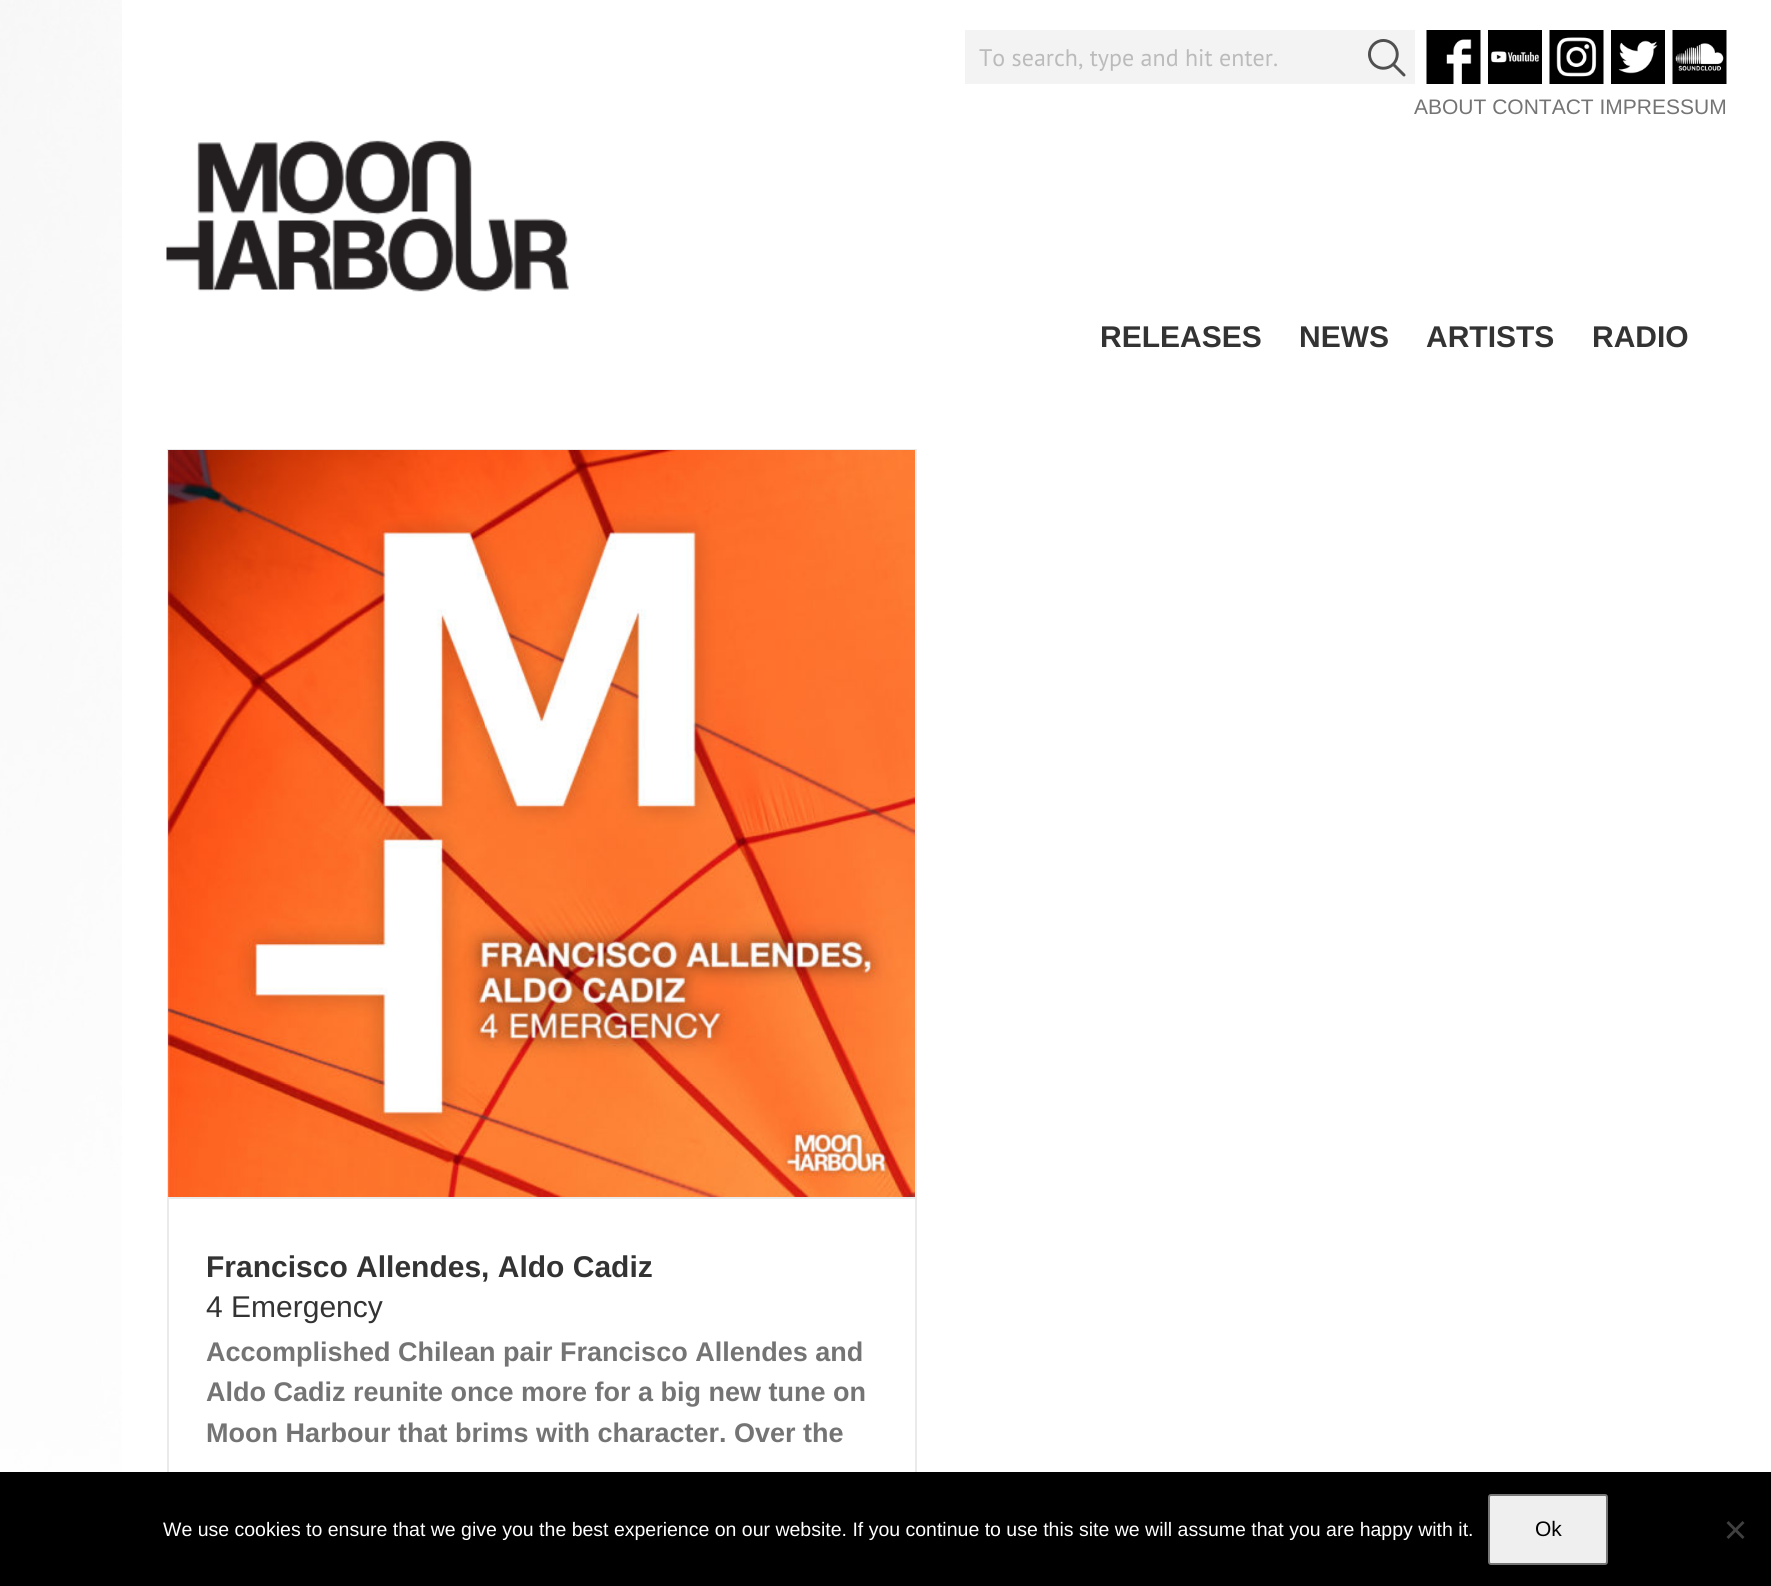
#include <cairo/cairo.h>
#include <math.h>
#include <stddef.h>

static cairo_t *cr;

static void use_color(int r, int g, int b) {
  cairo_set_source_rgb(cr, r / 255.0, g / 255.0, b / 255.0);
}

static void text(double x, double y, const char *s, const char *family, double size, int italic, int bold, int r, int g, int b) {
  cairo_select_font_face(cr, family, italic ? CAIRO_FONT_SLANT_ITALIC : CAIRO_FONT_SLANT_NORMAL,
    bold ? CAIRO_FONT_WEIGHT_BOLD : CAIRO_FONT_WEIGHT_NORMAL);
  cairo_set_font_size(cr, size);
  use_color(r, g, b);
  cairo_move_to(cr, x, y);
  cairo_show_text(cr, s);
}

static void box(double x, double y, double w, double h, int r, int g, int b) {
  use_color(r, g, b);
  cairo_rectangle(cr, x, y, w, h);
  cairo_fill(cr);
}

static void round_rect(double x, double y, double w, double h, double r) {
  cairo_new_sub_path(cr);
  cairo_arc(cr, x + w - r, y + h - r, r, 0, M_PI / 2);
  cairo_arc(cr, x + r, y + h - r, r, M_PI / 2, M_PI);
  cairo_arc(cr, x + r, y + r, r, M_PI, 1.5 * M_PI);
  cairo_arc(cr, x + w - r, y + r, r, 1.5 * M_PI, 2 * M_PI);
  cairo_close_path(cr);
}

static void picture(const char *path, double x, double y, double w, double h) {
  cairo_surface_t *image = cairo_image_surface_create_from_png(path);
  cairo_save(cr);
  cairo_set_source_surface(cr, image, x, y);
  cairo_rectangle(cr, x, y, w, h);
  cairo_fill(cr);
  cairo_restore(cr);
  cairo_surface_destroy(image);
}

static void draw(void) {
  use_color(255, 255, 255);
  cairo_paint(cr);
  picture("img_01.png", 0, 0, 122, 1472);
  box(965, 30, 450, 54, 243, 243, 243);
  picture("img_02.png", 1368, 39, 38, 38);
  picture("img_03.png", 1426, 30, 55, 54);
  picture("img_04.png", 1488, 30, 54, 54);
  picture("img_05.png", 1549, 30, 55, 54);
  picture("img_06.png", 1611, 30, 54, 54);
  picture("img_07.png", 1672, 30, 55, 54);
  picture("img_08.png", 166, 140, 403, 152);
  box(167, 449, 750, 1, 235, 234, 234);
  box(915, 449, 2, 1023, 235, 234, 234);
  box(167, 449, 2, 1023, 235, 234, 234);
  box(168, 1197, 747, 2, 235, 234, 234);
  picture("img_09.png", 168, 450, 747, 747);
  box(0, 1472, 1771, 114, 0, 0, 0);
  use_color(239, 239, 239);
  round_rect(1489, 1495, 118, 69, 2);
  cairo_fill_preserve(cr);
  use_color(118, 118, 118);
  cairo_stroke(cr);
  use_color(64, 64, 64);
  cairo_new_path(cr);
  cairo_move_to(cr, 1742.5, 1521);
  cairo_line_to(cr, 1744.5, 1523);
  cairo_line_to(cr, 1728.5, 1539);
  cairo_line_to(cr, 1726.5, 1537);
  cairo_close_path(cr);
  cairo_fill(cr);
  cairo_new_path(cr);
  cairo_move_to(cr, 1726.5, 1523);
  cairo_line_to(cr, 1728.5, 1521);
  cairo_line_to(cr, 1744.5, 1537);
  cairo_line_to(cr, 1742.5, 1539);
  cairo_close_path(cr);
  cairo_fill(cr);
  text(979, 66, "To search, type and hit enter.", "PT Sans", 24, 0, 0, 187, 187, 187);
  text(1414, 114, "ABOUT CONTACT IMPRESSUM", "Liberation Sans", 21, 0, 0, 116, 116, 116);
  text(1100, 347, "RELEASES", "Liberation Sans", 30, 0, 1, 51, 51, 51);
  text(1299, 347, "NEWS", "Liberation Sans", 30, 0, 1, 51, 51, 51);
  text(1426, 347, "ARTISTS", "Liberation Sans", 30, 0, 1, 51, 51, 51);
  text(1592, 347, "RADIO", "Liberation Sans", 30, 0, 1, 51, 51, 51);
  text(206, 1277, "Francisco Allendes, Aldo Cadiz", "Liberation Sans", 30, 0, 1, 51, 51, 51);
  text(206, 1317, "4 Emergency", "Liberation Sans", 30, 0, 0, 51, 51, 51);
  text(206, 1361, "Accomplished Chilean pair Francisco Allendes and", "Liberation Sans", 27, 0, 1, 116, 116, 116);
  text(206, 1401, "Aldo Cadiz reunite once more for a big new tune on", "Liberation Sans", 27, 0, 1, 116, 116, 116);
  text(206, 1442, "Moon Harbour that brims with character. Over the", "Liberation Sans", 27, 0, 1, 116, 116, 116);
  text(163, 1536, "We use cookies to ensure that we give you the best experience on our website. If you continue to use this site we will assume that you are happy with it.", "Liberation Sans", 19.5, 0, 0, 255, 255, 255);
  text(1535, 1536, "Ok", "Liberation Sans", 21, 0, 0, 0, 0, 0);
}

int main(void) {
  cairo_surface_t *surface = cairo_image_surface_create(CAIRO_FORMAT_RGB24, 1771, 1586);
  cr = cairo_create(surface);
  cairo_font_options_t *options = cairo_font_options_create();
  cairo_font_options_set_hint_metrics(options, CAIRO_HINT_METRICS_OFF);
  cairo_font_options_set_hint_style(options, CAIRO_HINT_STYLE_NONE);
  cairo_set_font_options(cr, options);
  cairo_set_miter_limit(cr, 4);
  draw();
  cairo_surface_write_to_png(surface, "out.png");
  cairo_font_options_destroy(options);
  cairo_destroy(cr);
  cairo_surface_destroy(surface);
  return 0;
}
